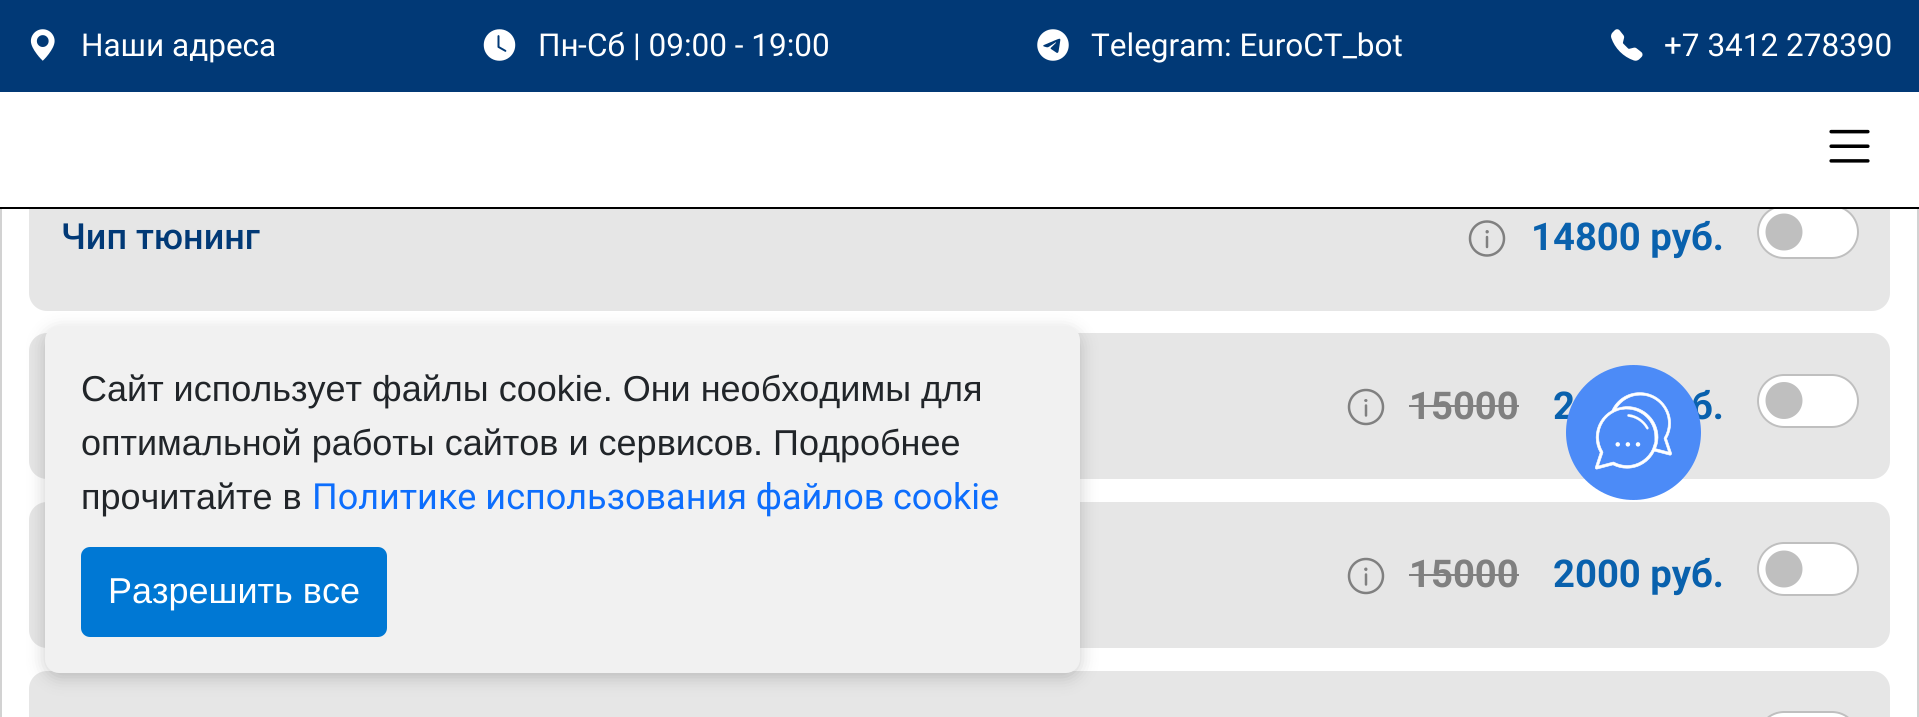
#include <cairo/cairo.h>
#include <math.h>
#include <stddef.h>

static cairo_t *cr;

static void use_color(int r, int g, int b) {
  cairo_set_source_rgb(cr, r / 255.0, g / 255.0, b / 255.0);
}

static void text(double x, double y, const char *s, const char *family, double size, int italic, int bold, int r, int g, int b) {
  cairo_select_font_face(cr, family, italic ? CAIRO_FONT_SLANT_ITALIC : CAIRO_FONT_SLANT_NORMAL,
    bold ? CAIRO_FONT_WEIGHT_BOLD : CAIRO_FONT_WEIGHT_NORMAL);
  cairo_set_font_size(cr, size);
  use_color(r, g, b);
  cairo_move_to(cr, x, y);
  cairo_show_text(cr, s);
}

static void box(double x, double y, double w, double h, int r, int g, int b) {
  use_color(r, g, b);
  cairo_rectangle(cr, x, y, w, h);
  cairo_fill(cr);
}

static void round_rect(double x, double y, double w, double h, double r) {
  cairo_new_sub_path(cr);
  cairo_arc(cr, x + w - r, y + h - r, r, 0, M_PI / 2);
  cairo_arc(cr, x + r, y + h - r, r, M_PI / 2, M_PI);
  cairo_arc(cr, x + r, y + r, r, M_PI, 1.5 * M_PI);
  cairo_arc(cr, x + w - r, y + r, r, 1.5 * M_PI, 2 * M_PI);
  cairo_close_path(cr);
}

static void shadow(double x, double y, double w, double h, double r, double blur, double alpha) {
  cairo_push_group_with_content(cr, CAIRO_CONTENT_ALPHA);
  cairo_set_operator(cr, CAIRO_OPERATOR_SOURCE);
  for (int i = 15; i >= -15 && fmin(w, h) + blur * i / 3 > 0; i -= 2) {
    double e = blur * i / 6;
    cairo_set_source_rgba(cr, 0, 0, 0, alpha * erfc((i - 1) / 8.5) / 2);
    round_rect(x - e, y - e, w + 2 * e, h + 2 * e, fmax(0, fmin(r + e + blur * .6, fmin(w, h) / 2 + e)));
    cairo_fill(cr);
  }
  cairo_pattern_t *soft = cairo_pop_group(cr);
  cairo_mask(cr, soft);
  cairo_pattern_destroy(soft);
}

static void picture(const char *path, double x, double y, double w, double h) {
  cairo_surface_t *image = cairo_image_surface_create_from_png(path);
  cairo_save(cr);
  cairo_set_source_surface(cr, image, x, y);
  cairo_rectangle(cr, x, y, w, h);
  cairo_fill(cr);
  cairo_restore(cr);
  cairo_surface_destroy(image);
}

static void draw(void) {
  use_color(255, 255, 255);
  cairo_paint(cr);
  cairo_rectangle(cr, 1, -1, 1917, 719);
  use_color(210, 210, 210);
  cairo_stroke(cr);
  use_color(230, 230, 230);
  round_rect(29, 164, 1861, 147, 18);
  cairo_fill(cr);
  use_color(255, 255, 255);
  round_rect(1757, 205, 102, 54, 27);
  cairo_fill(cr);
  use_color(191, 191, 191);
  cairo_arc(cr, 1784, 232, 18.5, 0, 2 * M_PI);
  cairo_fill(cr);
  round_rect(1758, 206, 100, 52, 26);
  cairo_set_source_rgba(cr, 0, 0, 0, 0.25);
  cairo_stroke(cr);
  box(0, 92, 1919, 115, 255, 255, 255);
  box(0, 0, 1919, 92, 1, 57, 118);
  picture("img_01.png", 30, 29, 25, 32);
  picture("img_02.png", 483, 29, 33, 32);
  picture("img_03.png", 1037, 29, 32, 32);
  picture("img_04.png", 1611, 29, 32, 32);
  box(0, 207, 1919, 2, 0, 0, 0);
  picture("img_05.png", 1829, 129, 41, 34);
  cairo_arc(cr, 1487, 238.5, 17, 0, 2 * M_PI);
  use_color(128, 128, 128);
  cairo_set_line_width(cr, 2.5);
  cairo_stroke(cr);
  cairo_new_path(cr);
  cairo_move_to(cr, 1487, 247);
  cairo_line_to(cr, 1487, 237);
  cairo_set_line_cap(cr, CAIRO_LINE_CAP_ROUND);
  cairo_stroke(cr);
  cairo_new_path(cr);
  cairo_move_to(cr, 1487, 233.5);
  cairo_curve_to(cr, 1489.5, 233.5, 1489.5, 230, 1487, 230);
  cairo_curve_to(cr, 1485, 230, 1485, 233.5, 1487, 233.5);
  cairo_close_path(cr);
  cairo_fill(cr);
  use_color(230, 230, 230);
  round_rect(29, 333, 1861, 146, 18);
  cairo_fill(cr);
  cairo_arc(cr, 1366, 407, 17, 0, 2 * M_PI);
  use_color(128, 128, 128);
  cairo_set_line_cap(cr, CAIRO_LINE_CAP_BUTT);
  cairo_stroke(cr);
  cairo_new_path(cr);
  cairo_move_to(cr, 1366, 415.5);
  cairo_line_to(cr, 1366, 405.5);
  cairo_set_line_cap(cr, CAIRO_LINE_CAP_ROUND);
  cairo_stroke(cr);
  cairo_new_path(cr);
  cairo_move_to(cr, 1366, 402);
  cairo_curve_to(cr, 1368, 402, 1368, 399, 1366, 399);
  cairo_curve_to(cr, 1363.5, 399, 1363.5, 402, 1366, 402);
  cairo_close_path(cr);
  cairo_fill(cr);
  box(1409, 405, 110, 2, 128, 128, 128);
  use_color(255, 255, 255);
  round_rect(1757, 374, 102, 54, 27);
  cairo_fill(cr);
  use_color(191, 191, 191);
  cairo_arc(cr, 1784, 400.5, 18.5, 0, 2 * M_PI);
  cairo_fill(cr);
  round_rect(1758, 375, 100, 52, 26);
  cairo_set_source_rgba(cr, 0, 0, 0, 0.25);
  cairo_set_line_width(cr, 2);
  cairo_set_line_cap(cr, CAIRO_LINE_CAP_BUTT);
  cairo_stroke(cr);
  use_color(230, 230, 230);
  round_rect(29, 502, 1861, 146, 18);
  cairo_fill(cr);
  cairo_arc(cr, 1366, 576, 17, 0, 2 * M_PI);
  use_color(128, 128, 128);
  cairo_set_line_width(cr, 2.5);
  cairo_stroke(cr);
  cairo_new_path(cr);
  cairo_move_to(cr, 1366, 584.5);
  cairo_line_to(cr, 1366, 574.5);
  cairo_set_line_cap(cr, CAIRO_LINE_CAP_ROUND);
  cairo_stroke(cr);
  cairo_new_path(cr);
  cairo_move_to(cr, 1366, 571);
  cairo_curve_to(cr, 1368, 571, 1368, 567.5, 1366, 567.5);
  cairo_curve_to(cr, 1363.5, 567.5, 1363.5, 571, 1366, 571);
  cairo_close_path(cr);
  cairo_fill(cr);
  box(1409, 574, 110, 2, 128, 128, 128);
  use_color(255, 255, 255);
  round_rect(1757, 542, 102, 54, 27);
  cairo_fill(cr);
  use_color(191, 191, 191);
  cairo_arc(cr, 1784, 569, 18.5, 0, 2 * M_PI);
  cairo_fill(cr);
  round_rect(1758, 543, 100, 52, 26);
  cairo_set_source_rgba(cr, 0, 0, 0, 0.25);
  cairo_set_line_width(cr, 2);
  cairo_set_line_cap(cr, CAIRO_LINE_CAP_BUTT);
  cairo_stroke(cr);
  use_color(230, 230, 230);
  round_rect(29, 671, 1861, 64, 18);
  cairo_fill(cr);
  use_color(255, 255, 255);
  round_rect(1757, 711, 102, 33, 27);
  cairo_fill(cr);
  round_rect(1758, 712, 100, 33, 26);
  cairo_set_source_rgba(cr, 0, 0, 0, 0.25);
  cairo_stroke(cr);
  use_color(0, 0, 0);
  shadow(45, 331, 1035, 346, 14, 9, 0.2);
  use_color(241, 241, 241);
  round_rect(45, 326, 1035, 347, 14);
  cairo_fill(cr);
  use_color(0, 120, 212);
  round_rect(81, 547, 306, 90, 9);
  cairo_fill(cr);
  text(81, 56, "Наши адреса", "Roboto", 31.5, 0, 0, 255, 255, 255);
  text(538, 56, "Пн", "Roboto", 31.5, 0, 0, 255, 255, 255);
  text(578, 56, "-", "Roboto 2", 31.5, 0, 0, 255, 255, 255);
  text(587, 56, "Сб", "Roboto", 31.5, 0, 0, 255, 255, 255);
  text(633, 56, "| 09:00 - 19:00", "Roboto 2", 31.5, 0, 0, 255, 255, 255);
  text(1091, 56, "Telegram: EuroCT_bot", "Roboto 2", 31.5, 0, 0, 255, 255, 255);
  text(1664, 56, "+7 3412 278390", "Roboto 2", 31.5, 0, 0, 255, 255, 255);
  text(61, 249, "Чип тюнинг", "Roboto Medium", 36, 0, 0, 1, 57, 118);
  text(1531, 250, "14800 руб.", "Roboto", 38.25, 0, 1, 9, 97, 173);
  text(1409, 419, "15000", "Roboto", 38.25, 0, 1, 128, 128, 128);
  text(1553, 419, "2", "Roboto", 38.25, 0, 1, 9, 97, 173);
  text(1691, 419, "б.", "Roboto", 38.25, 0, 1, 9, 97, 173);
  text(1409, 587, "15000", "Roboto", 38.25, 0, 1, 128, 128, 128);
  text(1553, 587, "2000 руб.", "Roboto", 38.25, 0, 1, 9, 97, 173);
  text(81, 401, "Сайт использует файлы cookie. Они необходимы для", "Liberation Sans", 36, 0, 0, 33, 37, 41);
  text(81, 455, "оптимальной работы сайтов и сервисов. Подробнее", "Liberation Sans", 36, 0, 0, 33, 37, 41);
  text(81, 509, "прочитайте в", "Liberation Sans", 36, 0, 0, 33, 37, 41);
  text(312, 509, "Политике использования файлов", "Roboto", 36, 0, 0, 13, 110, 253);
  text(893, 509, "cookie", "Roboto 2", 36, 0, 0, 13, 110, 253);
  text(108, 603, "Разрешить все", "Liberation Sans", 36, 0, 0, 255, 255, 255);
  use_color(76, 139, 247);
  cairo_new_path(cr);
  cairo_arc(cr, 1633.5, 432.5, 67.5, 0, 2 * M_PI);
  cairo_fill(cr);
  picture("img_06.png", 1595, 392, 77, 78);
}

int main(void) {
  cairo_surface_t *surface = cairo_image_surface_create(CAIRO_FORMAT_RGB24, 1919, 717);
  cr = cairo_create(surface);
  cairo_font_options_t *options = cairo_font_options_create();
  cairo_font_options_set_hint_metrics(options, CAIRO_HINT_METRICS_OFF);
  cairo_font_options_set_hint_style(options, CAIRO_HINT_STYLE_NONE);
  cairo_set_font_options(cr, options);
  cairo_set_miter_limit(cr, 4);
  draw();
  cairo_surface_write_to_png(surface, "out.png");
  cairo_font_options_destroy(options);
  cairo_destroy(cr);
  cairo_surface_destroy(surface);
  return 0;
}
